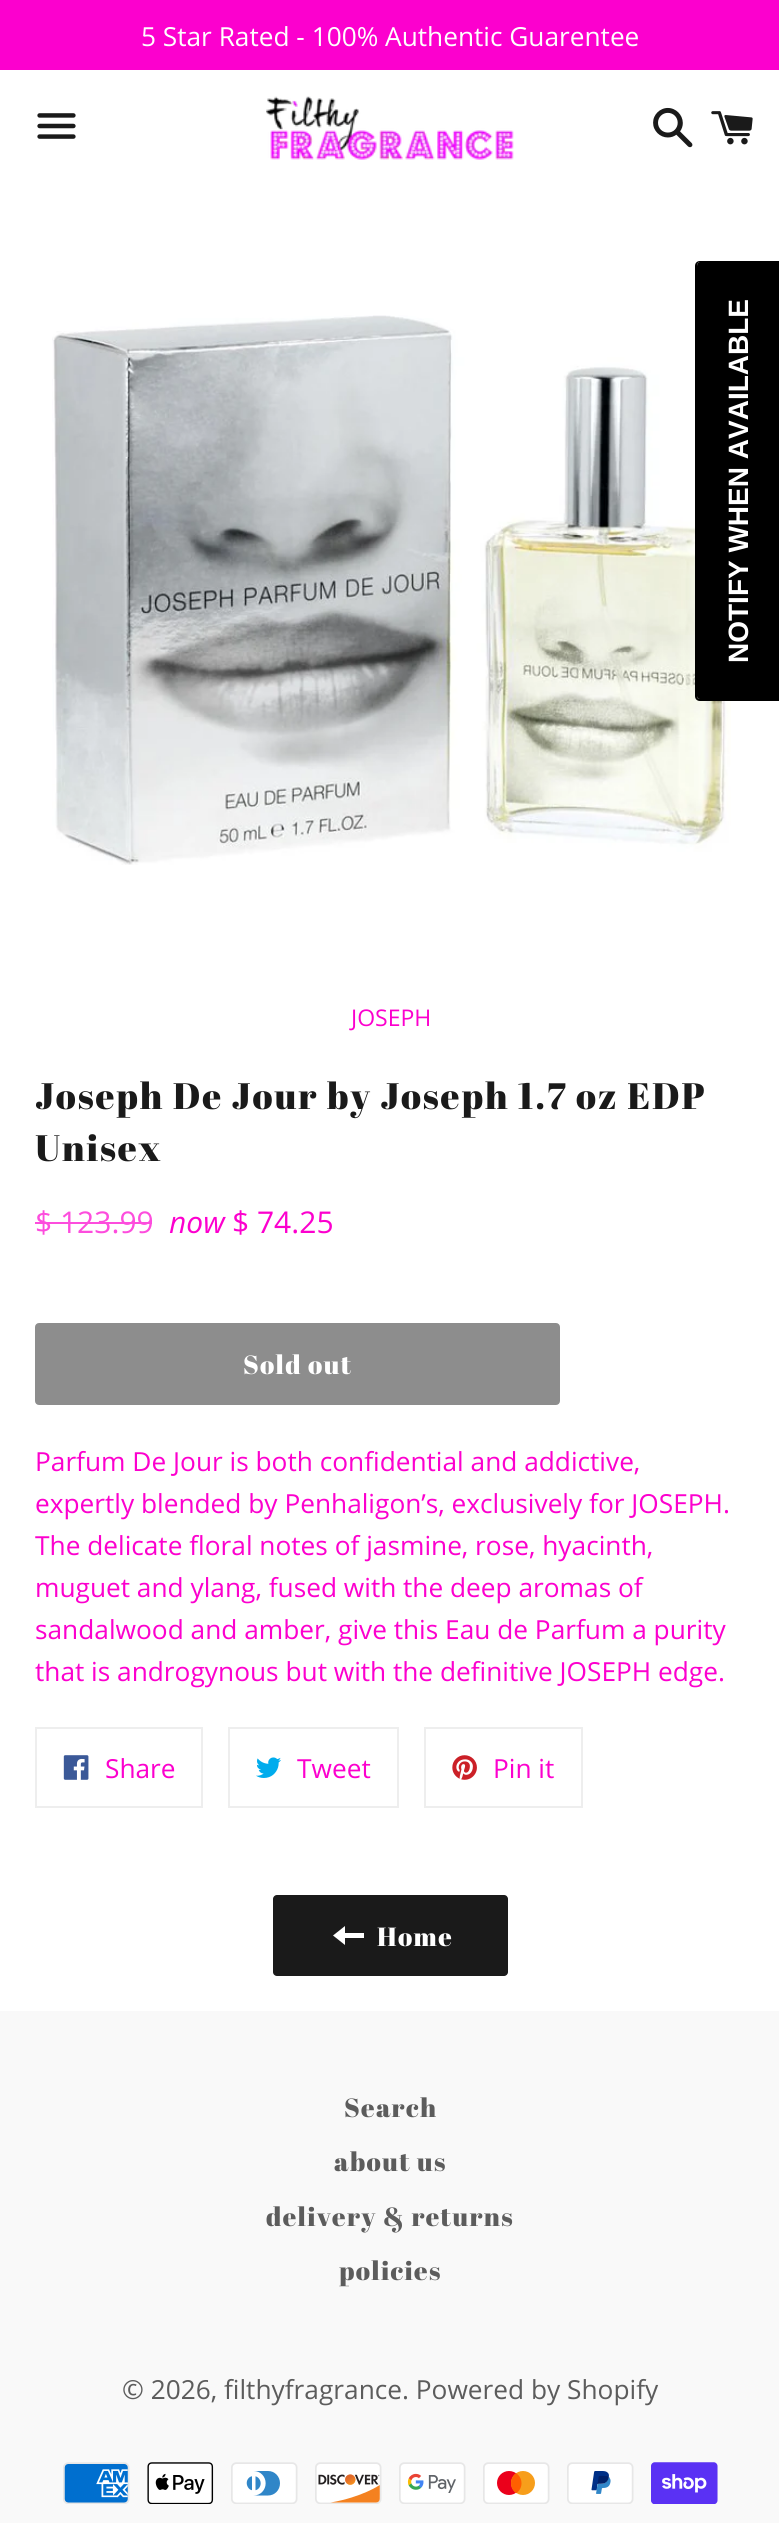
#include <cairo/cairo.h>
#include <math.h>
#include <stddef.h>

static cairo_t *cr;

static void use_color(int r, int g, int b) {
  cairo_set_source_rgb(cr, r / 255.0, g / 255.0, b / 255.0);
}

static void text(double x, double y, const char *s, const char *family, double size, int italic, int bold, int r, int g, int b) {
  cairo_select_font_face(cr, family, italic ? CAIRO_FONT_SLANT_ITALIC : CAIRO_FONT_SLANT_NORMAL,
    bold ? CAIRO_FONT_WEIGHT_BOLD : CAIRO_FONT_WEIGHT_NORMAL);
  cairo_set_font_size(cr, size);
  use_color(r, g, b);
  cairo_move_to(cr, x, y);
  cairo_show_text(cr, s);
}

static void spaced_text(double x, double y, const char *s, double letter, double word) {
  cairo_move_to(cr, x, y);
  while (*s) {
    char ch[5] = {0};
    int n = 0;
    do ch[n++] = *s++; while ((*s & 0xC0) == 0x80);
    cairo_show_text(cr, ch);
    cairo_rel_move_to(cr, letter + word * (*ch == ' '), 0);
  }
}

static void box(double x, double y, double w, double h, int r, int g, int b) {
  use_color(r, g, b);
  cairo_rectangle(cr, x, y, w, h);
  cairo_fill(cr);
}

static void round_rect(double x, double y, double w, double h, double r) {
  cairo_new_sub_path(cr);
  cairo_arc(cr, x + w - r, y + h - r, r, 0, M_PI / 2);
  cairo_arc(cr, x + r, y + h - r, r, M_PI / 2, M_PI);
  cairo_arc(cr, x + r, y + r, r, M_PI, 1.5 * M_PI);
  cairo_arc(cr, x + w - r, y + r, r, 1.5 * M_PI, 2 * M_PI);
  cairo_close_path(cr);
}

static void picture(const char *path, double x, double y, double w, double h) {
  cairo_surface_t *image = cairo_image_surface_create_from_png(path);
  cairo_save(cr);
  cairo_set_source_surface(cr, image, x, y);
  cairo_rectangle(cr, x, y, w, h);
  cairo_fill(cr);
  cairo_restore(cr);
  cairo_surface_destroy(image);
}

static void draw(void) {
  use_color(255, 255, 255);
  cairo_paint(cr);
  box(0, 0, 779, 70, 252, 0, 206);
  picture("img_01.png", 37, 113, 39, 26);
  picture("img_02.png", 266, 96, 248, 64);
  picture("img_03.png", 653, 107, 40, 41);
  picture("img_04.png", 711, 111, 42, 34);
  picture("img_05.png", 52, 315, 679, 550);
  box(35, 1222, 117, 2, 253, 77, 221);
  use_color(141, 141, 141);
  round_rect(37, 1325, 521, 78, 2);
  cairo_fill_preserve(cr);
  cairo_set_line_width(cr, 4);
  cairo_stroke(cr);
  cairo_rectangle(cr, 36, 1728, 166, 79);
  use_color(238, 238, 238);
  cairo_set_line_width(cr, 2);
  cairo_stroke(cr);
  picture("img_06.png", 63, 1755, 26, 25);
  cairo_rectangle(cr, 229, 1728, 169, 79);
  cairo_stroke(cr);
  picture("img_07.png", 256, 1757, 25, 21);
  cairo_rectangle(cr, 425, 1728, 157, 79);
  cairo_stroke(cr);
  picture("img_08.png", 452, 1755, 25, 25);
  use_color(26, 26, 26);
  round_rect(273, 1895, 235, 81, 4);
  cairo_fill(cr);
  use_color(255, 255, 255);
  cairo_new_path(cr);
  cairo_move_to(cr, 345, 1933);
  cairo_line_to(cr, 345, 1926);
  cairo_line_to(cr, 333, 1935.5);
  cairo_line_to(cr, 345, 1945);
  cairo_line_to(cr, 345, 1938);
  cairo_line_to(cr, 364, 1938);
  cairo_line_to(cr, 364, 1933);
  cairo_close_path(cr);
  cairo_fill(cr);
  use_color(0, 0, 0);
  cairo_new_path(cr);
  cairo_move_to(cr, 697, 696);
  cairo_line_to(cr, 697, 266);
  cairo_curve_to(cr, 697, 264, 698, 262, 700, 262);
  cairo_line_to(cr, 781, 262);
  cairo_line_to(cr, 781, 699);
  cairo_line_to(cr, 700, 699);
  cairo_curve_to(cr, 698, 699, 697, 698, 697, 696);
  cairo_close_path(cr);
  cairo_fill(cr);
  cairo_set_fill_rule(cr, CAIRO_FILL_RULE_EVEN_ODD);
  cairo_new_path(cr);
  cairo_move_to(cr, 695, 696);
  cairo_line_to(cr, 695, 266);
  cairo_curve_to(cr, 695, 263, 697, 261, 700, 261);
  cairo_line_to(cr, 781, 261);
  cairo_line_to(cr, 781, 701);
  cairo_line_to(cr, 700, 701);
  cairo_curve_to(cr, 697, 701, 695, 699, 695, 696);
  cairo_close_path(cr);
  cairo_move_to(cr, 697, 696);
  cairo_line_to(cr, 697, 266);
  cairo_curve_to(cr, 697, 264, 698, 262, 700, 262);
  cairo_line_to(cr, 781, 262);
  cairo_line_to(cr, 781, 699);
  cairo_line_to(cr, 700, 699);
  cairo_curve_to(cr, 698, 699, 697, 698, 697, 696);
  cairo_close_path(cr);
  cairo_fill(cr);
  box(0, 2011, 779, 512, 249, 249, 249);
  picture("img_09.png", 63, 2462, 67, 42);
  picture("img_10.png", 147, 2462, 67, 42);
  picture("img_11.png", 231, 2462, 67, 42);
  picture("img_12.png", 315, 2462, 67, 42);
  picture("img_13.png", 399, 2462, 67, 42);
  picture("img_14.png", 483, 2462, 67, 42);
  picture("img_15.png", 567, 2462, 67, 42);
  picture("img_16.png", 651, 2462, 67, 42);
  text(141, 46, "5 Star Rated - 100% Authentic Guarentee", "Open Sans", 26.25, 0, 0, 255, 255, 255);
  text(351, 1026, "JOSEPH", "Open Sans", 23, 0, 0, 252, 0, 206);
  cairo_select_font_face(cr, "Abril Fatface", CAIRO_FONT_SLANT_NORMAL, CAIRO_FONT_WEIGHT_NORMAL);
  cairo_set_font_size(cr, 36.75);
  use_color(26, 26, 26);
  spaced_text(35, 1109, "Joseph De Jour by Joseph 1.7 oz EDP", 1.85, 0);
  spaced_text(35, 1161, "Unisex", 1.85, 0);
  text(35, 1233, "$ 123.99", "Open Sans", 30, 0, 0, 253, 77, 221);
  text(169, 1233, "now", "Open Sans", 30, 1, 0, 252, 0, 206);
  text(232, 1233, "$ 74.25", "Open Sans", 30, 0, 0, 252, 0, 206);
  cairo_select_font_face(cr, "Abril Fatface", CAIRO_FONT_SLANT_NORMAL, CAIRO_FONT_WEIGHT_NORMAL);
  cairo_set_font_size(cr, 26.25);
  use_color(255, 255, 255);
  spaced_text(243, 1374, "Sold out", 1.3, 0);
  text(35, 1471, "Parfum De Jour is both confidential and addictive,", "Open Sans", 26.25, 0, 0, 252, 0, 206);
  text(35, 1513, "expertly blended by Penhaligon’s, exclusively for JOSEPH.", "Open Sans", 26.25, 0, 0, 252, 0, 206);
  text(35, 1555, "The delicate floral notes of jasmine, rose, hyacinth,", "Open Sans", 26.25, 0, 0, 252, 0, 206);
  text(35, 1597, "muguet and ylang, fused with the deep aromas of", "Open Sans", 26.25, 0, 0, 252, 0, 206);
  text(35, 1639, "sandalwood and amber, give this Eau de Parfum a purity", "Open Sans", 26.25, 0, 0, 252, 0, 206);
  text(35, 1681, "that is androgynous but with the definitive JOSEPH edge.", "Open Sans", 26.25, 0, 0, 252, 0, 206);
  text(105, 1778, "Share", "Open Sans", 26.25, 0, 0, 252, 0, 206);
  text(297, 1778, "Tweet", "Open Sans", 26.25, 0, 0, 252, 0, 206);
  text(493, 1778, "Pin it", "Open Sans", 26.25, 0, 0, 252, 0, 206);
  cairo_select_font_face(cr, "Abril Fatface", CAIRO_FONT_SLANT_NORMAL, CAIRO_FONT_WEIGHT_NORMAL);
  use_color(255, 255, 255);
  spaced_text(377, 1946, "Home", 1.3, 0);
  cairo_save(cr);
  cairo_translate(cr, 748, 663);
  cairo_rotate(cr, -90 * M_PI / 180);
  text(0, 0, "NOTIFY WHEN AVAILABLE", "Liberation Sans", 28, 0, 1, 255, 255, 255);
  cairo_restore(cr);
  cairo_select_font_face(cr, "Abril Fatface", CAIRO_FONT_SLANT_NORMAL, CAIRO_FONT_WEIGHT_NORMAL);
  cairo_set_font_size(cr, 26.25);
  use_color(92, 92, 92);
  spaced_text(344, 2117, "Search", 1.3, 0);
  spaced_text(334, 2171, "about us", 1.3, 0);
  spaced_text(266, 2226, "delivery & returns", 1.3, 0);
  spaced_text(339, 2280, "policies", 1.3, 0);
  text(122, 2399, "© 2026, filthyfragrance. Powered by Shopify", "Open Sans", 26.25, 0, 0, 92, 92, 92);
}

int main(void) {
  cairo_surface_t *surface = cairo_image_surface_create(CAIRO_FORMAT_RGB24, 779, 2523);
  cr = cairo_create(surface);
  cairo_font_options_t *options = cairo_font_options_create();
  cairo_font_options_set_hint_metrics(options, CAIRO_HINT_METRICS_OFF);
  cairo_font_options_set_hint_style(options, CAIRO_HINT_STYLE_NONE);
  cairo_set_font_options(cr, options);
  cairo_set_miter_limit(cr, 4);
  draw();
  cairo_surface_write_to_png(surface, "out.png");
  cairo_font_options_destroy(options);
  cairo_destroy(cr);
  cairo_surface_destroy(surface);
  return 0;
}
